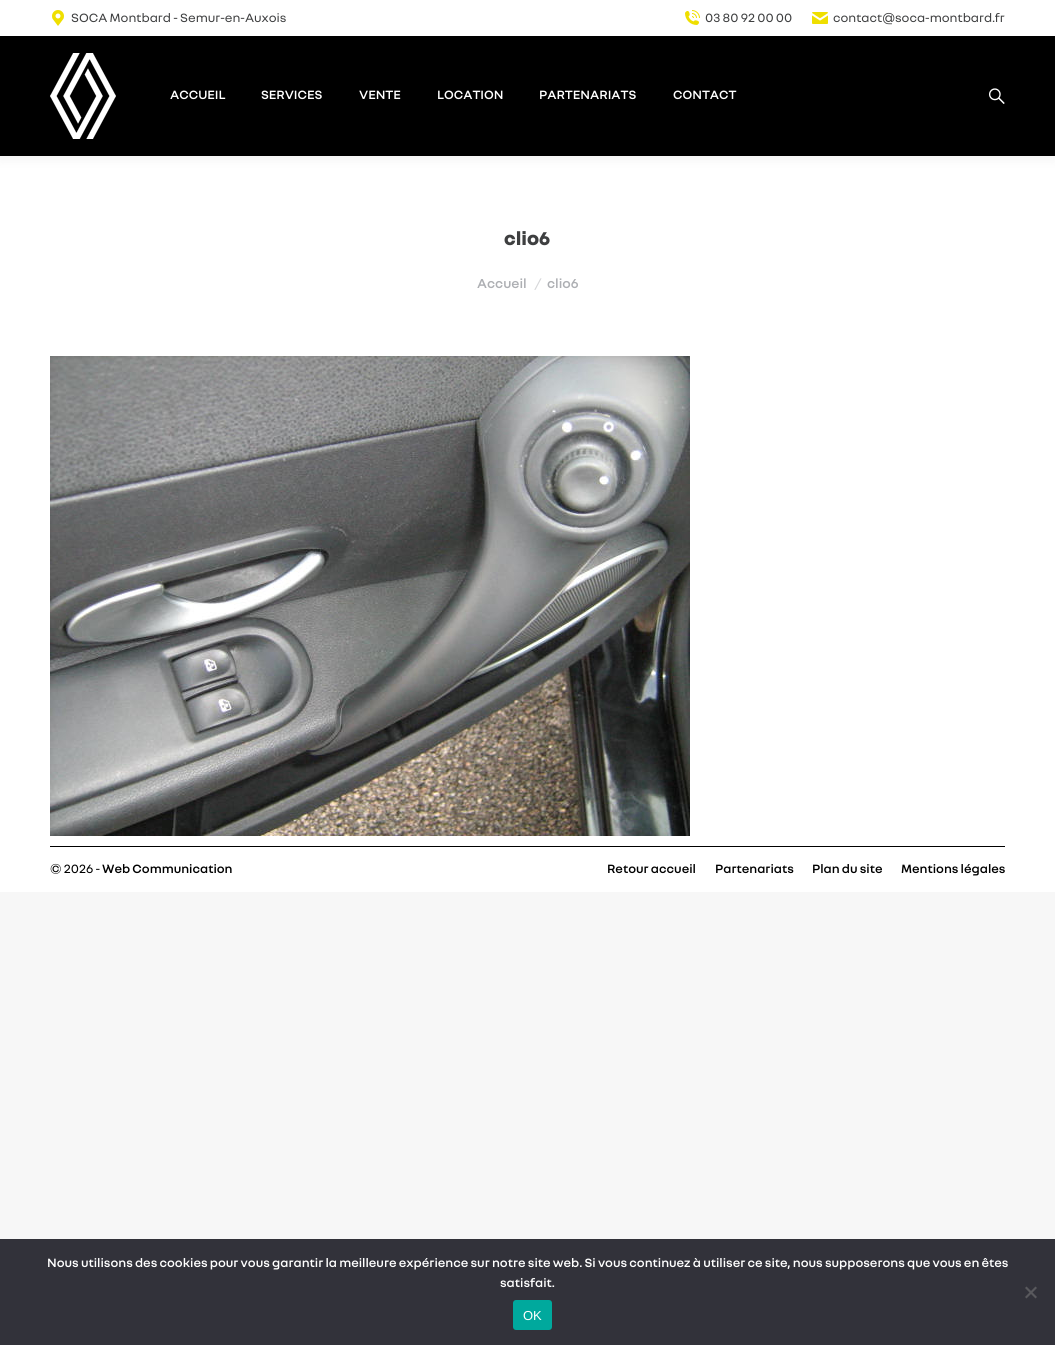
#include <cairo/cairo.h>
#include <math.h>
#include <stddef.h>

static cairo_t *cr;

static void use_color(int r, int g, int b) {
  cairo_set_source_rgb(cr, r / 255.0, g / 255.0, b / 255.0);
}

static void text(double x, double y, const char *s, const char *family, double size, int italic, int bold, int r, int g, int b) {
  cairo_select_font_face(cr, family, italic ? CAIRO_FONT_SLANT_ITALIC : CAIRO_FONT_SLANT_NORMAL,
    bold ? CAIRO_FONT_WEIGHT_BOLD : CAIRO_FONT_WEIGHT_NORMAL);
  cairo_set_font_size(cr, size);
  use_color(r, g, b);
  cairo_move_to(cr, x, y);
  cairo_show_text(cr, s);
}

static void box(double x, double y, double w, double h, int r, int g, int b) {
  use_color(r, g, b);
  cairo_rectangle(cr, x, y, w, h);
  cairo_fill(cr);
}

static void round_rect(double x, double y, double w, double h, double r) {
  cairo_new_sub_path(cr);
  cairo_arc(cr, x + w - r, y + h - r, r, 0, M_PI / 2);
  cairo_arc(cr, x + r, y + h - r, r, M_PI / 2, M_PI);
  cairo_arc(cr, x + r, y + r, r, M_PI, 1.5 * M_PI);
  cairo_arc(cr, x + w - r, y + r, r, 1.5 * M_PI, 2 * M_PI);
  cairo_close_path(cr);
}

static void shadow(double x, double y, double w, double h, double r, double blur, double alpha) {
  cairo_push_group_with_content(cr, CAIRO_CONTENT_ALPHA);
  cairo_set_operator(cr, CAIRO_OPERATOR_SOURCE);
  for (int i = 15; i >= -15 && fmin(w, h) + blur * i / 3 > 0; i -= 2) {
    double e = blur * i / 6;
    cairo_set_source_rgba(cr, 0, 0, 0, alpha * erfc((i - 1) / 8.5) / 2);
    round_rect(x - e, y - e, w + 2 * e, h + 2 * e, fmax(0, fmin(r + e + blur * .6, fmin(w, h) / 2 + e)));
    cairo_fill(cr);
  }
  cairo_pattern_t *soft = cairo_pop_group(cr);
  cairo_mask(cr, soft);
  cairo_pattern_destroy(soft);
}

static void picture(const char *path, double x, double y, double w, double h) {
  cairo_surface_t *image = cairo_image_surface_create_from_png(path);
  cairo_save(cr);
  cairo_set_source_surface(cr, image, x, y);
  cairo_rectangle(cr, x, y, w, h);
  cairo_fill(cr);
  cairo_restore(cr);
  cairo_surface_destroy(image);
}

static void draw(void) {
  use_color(247, 247, 247);
  cairo_paint(cr);
  box(0, 156, 1055, 736, 255, 255, 255);
  use_color(0, 0, 0);
  shadow(-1, -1, 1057, 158, 0, 7.5, 0.07);
  box(0, 36, 1055, 120, 0, 0, 0);
  box(0, 0, 1055, 36, 255, 255, 255);
  picture("img_01.png", 52, 10, 12, 16);
  picture("img_02.png", 685, 10, 15, 15);
  picture("img_03.png", 812, 12, 16, 12);
  picture("img_04.png", 50, 53, 66, 86);
  picture("img_05.png", 989, 88, 16, 16);
  picture("img_06.png", 50, 356, 640, 480);
  box(50, 846, 955, 1, 0, 0, 0);
  box(0, 1239, 1055, 106, 50, 50, 58);
  use_color(89, 89, 93);
  cairo_new_path(cr);
  cairo_move_to(cr, 1035.5, 1286.5);
  cairo_line_to(cr, 1037, 1288);
  cairo_line_to(cr, 1026.5, 1298.5);
  cairo_line_to(cr, 1025, 1297);
  cairo_close_path(cr);
  cairo_fill(cr);
  cairo_new_path(cr);
  cairo_move_to(cr, 1025, 1288);
  cairo_line_to(cr, 1026.5, 1286.5);
  cairo_line_to(cr, 1037, 1297);
  cairo_line_to(cr, 1035.5, 1298.5);
  cairo_close_path(cr);
  cairo_fill(cr);
  use_color(0, 169, 157);
  round_rect(513, 1300, 39, 30, 3);
  cairo_fill(cr);
  text(71, 22, "SOCA Montbard - Semur-en-Auxois", "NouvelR", 13, 0, 0, 62, 63, 64);
  text(705, 22, "03 80 92 00 00", "NouvelR", 13, 0, 0, 62, 63, 64);
  text(833, 22, "contact@soca-montbard.fr", "NouvelR", 13, 0, 0, 62, 63, 64);
  text(170, 99, "ACCUEIL", "NouvelR SemiBold", 13, 0, 0, 255, 255, 255);
  text(261, 99, "SERVICES", "NouvelR SemiBold", 13, 0, 0, 255, 255, 255);
  text(359, 99, "VENTE", "NouvelR SemiBold", 13, 0, 0, 255, 255, 255);
  text(437, 99, "LOCATION", "NouvelR SemiBold", 13, 0, 0, 255, 255, 255);
  text(539, 99, "PARTENARIATS", "NouvelR SemiBold", 13, 0, 0, 255, 255, 255);
  text(673, 99, "CONTACT", "NouvelR SemiBold", 13, 0, 0, 255, 255, 255);
  text(504, 245, "clio6", "NouvelR ExtraBold", 20, 0, 0, 62, 63, 64);
  text(477, 288, "Accueil", "NouvelR SemiBold", 14, 0, 0, 173, 175, 179);
  text(535, 288, "/", "NouvelR", 14, 0, 0, 214, 215, 217);
  text(547, 288, "clio6", "NouvelR SemiBold", 14, 0, 0, 173, 175, 179);
  text(50, 873, "© 2026 -", "NouvelR", 13, 0, 0, 0, 0, 0);
  text(102, 873, "Web Communication", "NouvelR SemiBold", 13, 0, 0, 0, 0, 0);
  text(607, 873, "Retour accueil", "NouvelR SemiBold", 13, 0, 0, 0, 0, 0);
  text(715, 873, "Partenariats", "NouvelR SemiBold", 13, 0, 0, 0, 0, 0);
  text(812, 873, "Plan du site", "NouvelR SemiBold", 13, 0, 0, 0, 0, 0);
  text(901, 873, "Mentions légales", "NouvelR SemiBold", 13, 0, 0, 0, 0, 0);
  text(47, 1267, "Nous utilisons des cookies pour vous garantir la meilleure expérience sur notre site web. Si vous continuez à utiliser ce site, nous supposerons que vous en êtes", "NouvelR SemiBold", 13, 0, 0, 255, 255, 255);
  text(500, 1287, "satisfait.", "NouvelR SemiBold", 13, 0, 0, 255, 255, 255);
  text(523, 1320, "OK", "Liberation Sans", 13, 0, 0, 255, 255, 255);
}

int main(void) {
  cairo_surface_t *surface = cairo_image_surface_create(CAIRO_FORMAT_RGB24, 1055, 1345);
  cr = cairo_create(surface);
  cairo_font_options_t *options = cairo_font_options_create();
  cairo_font_options_set_hint_metrics(options, CAIRO_HINT_METRICS_OFF);
  cairo_font_options_set_hint_style(options, CAIRO_HINT_STYLE_NONE);
  cairo_set_font_options(cr, options);
  cairo_set_miter_limit(cr, 4);
  draw();
  cairo_surface_write_to_png(surface, "out.png");
  cairo_font_options_destroy(options);
  cairo_destroy(cr);
  cairo_surface_destroy(surface);
  return 0;
}
